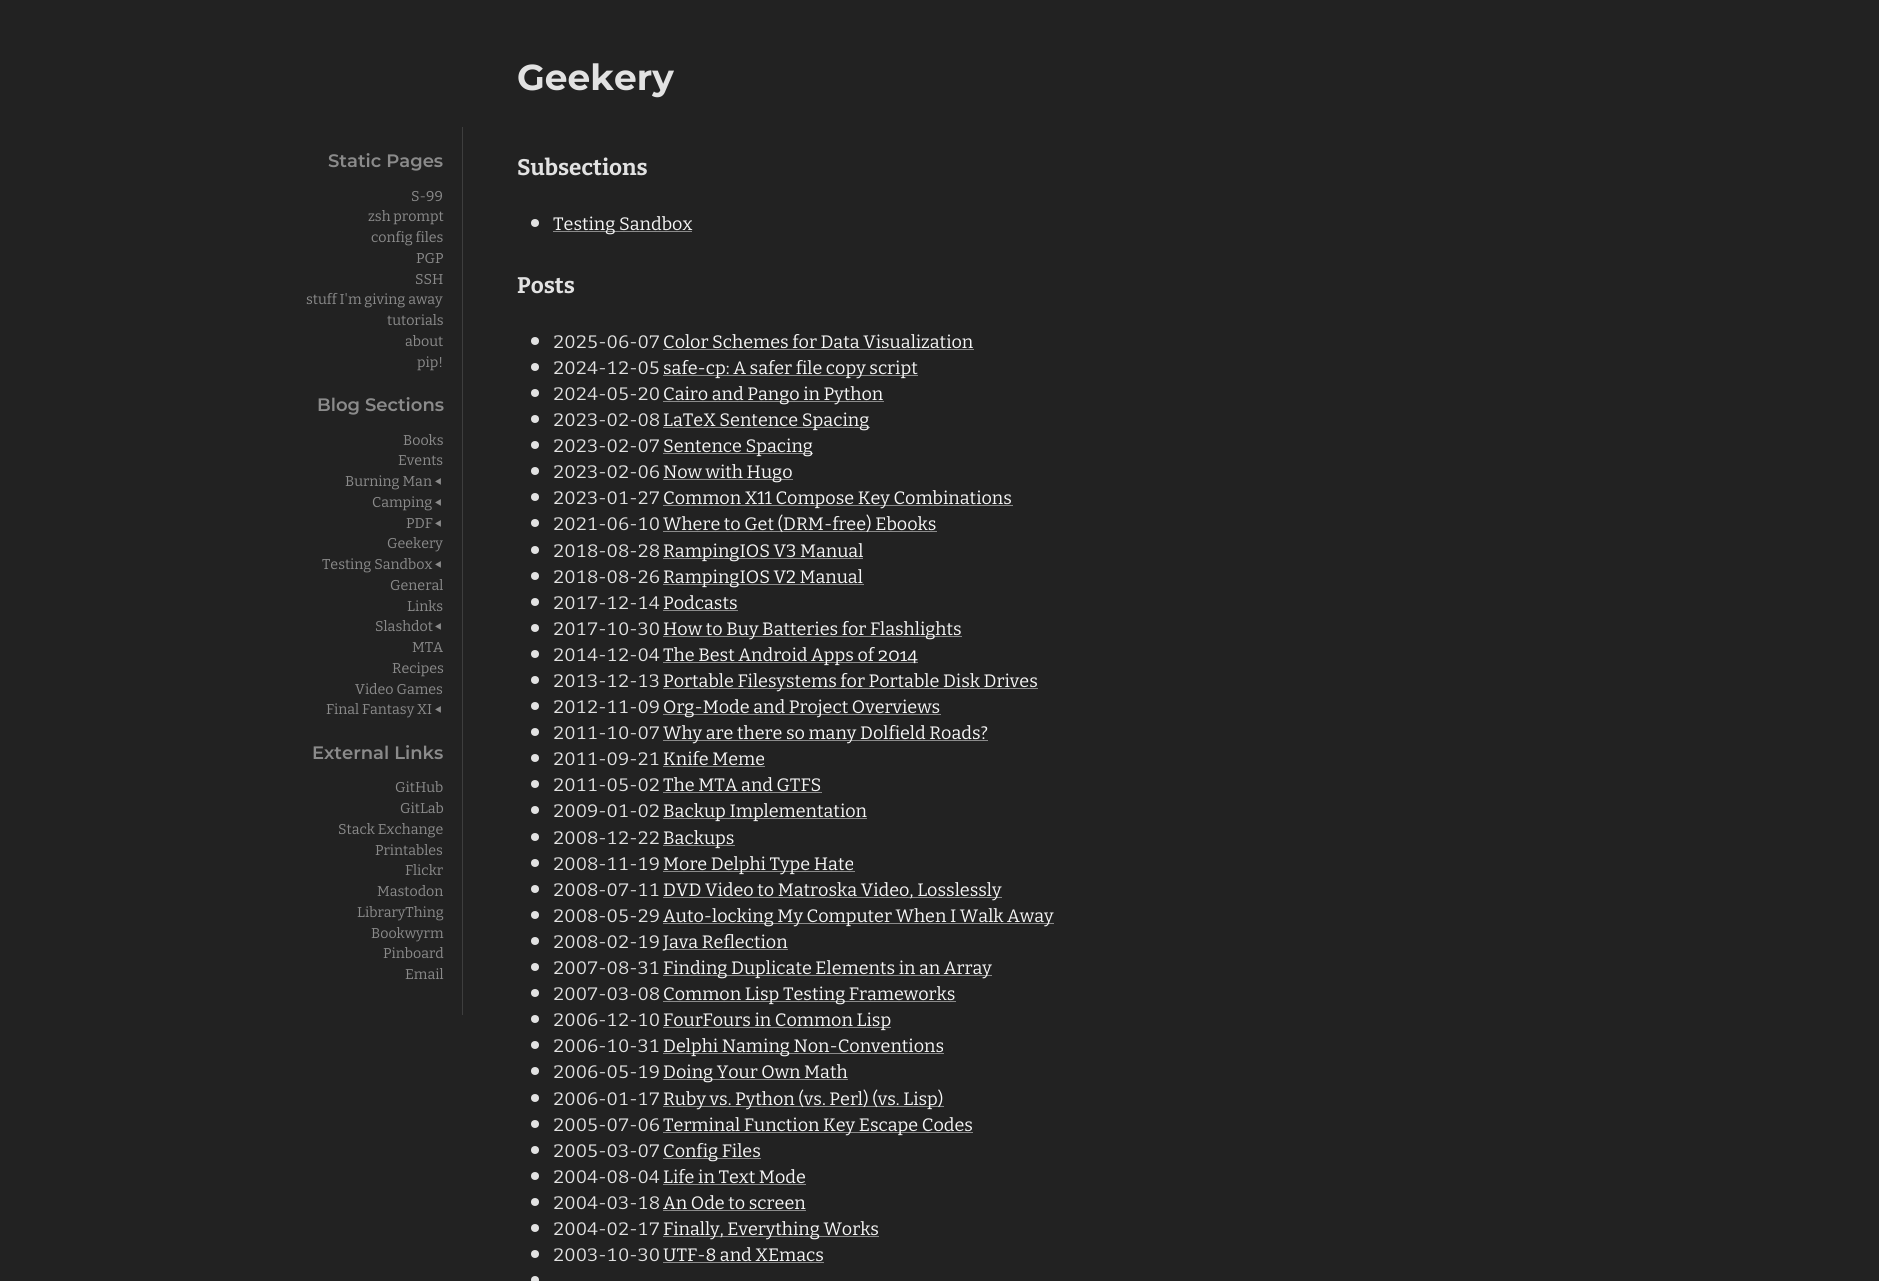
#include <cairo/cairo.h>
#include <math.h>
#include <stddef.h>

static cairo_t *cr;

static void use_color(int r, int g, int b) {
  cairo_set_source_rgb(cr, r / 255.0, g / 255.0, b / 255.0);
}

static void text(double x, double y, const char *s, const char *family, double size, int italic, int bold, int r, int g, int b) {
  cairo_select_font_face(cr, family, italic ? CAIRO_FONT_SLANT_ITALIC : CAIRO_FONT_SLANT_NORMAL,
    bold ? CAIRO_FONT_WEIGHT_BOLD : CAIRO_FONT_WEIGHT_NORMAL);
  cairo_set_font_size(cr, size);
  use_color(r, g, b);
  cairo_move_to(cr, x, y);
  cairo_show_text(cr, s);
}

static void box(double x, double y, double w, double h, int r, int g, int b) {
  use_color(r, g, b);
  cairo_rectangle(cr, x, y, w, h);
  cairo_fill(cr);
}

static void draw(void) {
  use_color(34, 34, 34);
  cairo_paint(cr);
  box(462, 127, 1, 888, 62, 62, 62);
  use_color(226, 226, 226);
  cairo_arc(cr, 535, 223, 4, 0, 2 * M_PI);
  cairo_fill(cr);
  box(553, 231, 139, 1, 139, 139, 139);
  use_color(226, 226, 226);
  cairo_arc(cr, 535, 341, 4, 0, 2 * M_PI);
  cairo_fill(cr);
  box(663, 349, 311, 1, 139, 139, 139);
  use_color(226, 226, 226);
  cairo_arc(cr, 535, 367, 4, 0, 2 * M_PI);
  cairo_fill(cr);
  box(663, 375, 255, 1, 139, 139, 139);
  use_color(226, 226, 226);
  cairo_arc(cr, 535, 393, 4, 0, 2 * M_PI);
  cairo_fill(cr);
  box(663, 401, 221, 1, 139, 139, 139);
  use_color(226, 226, 226);
  cairo_arc(cr, 535, 419, 4, 0, 2 * M_PI);
  cairo_fill(cr);
  box(663, 427, 207, 1, 139, 139, 139);
  use_color(226, 226, 226);
  cairo_arc(cr, 535, 445, 4, 0, 2 * M_PI);
  cairo_fill(cr);
  box(663, 453, 150, 1, 139, 139, 139);
  use_color(226, 226, 226);
  cairo_arc(cr, 535, 471, 4, 0, 2 * M_PI);
  cairo_fill(cr);
  box(663, 479, 130, 1, 139, 139, 139);
  use_color(226, 226, 226);
  cairo_arc(cr, 535, 497, 4, 0, 2 * M_PI);
  cairo_fill(cr);
  box(663, 505, 350, 1, 139, 139, 139);
  use_color(226, 226, 226);
  cairo_arc(cr, 535, 523, 4, 0, 2 * M_PI);
  cairo_fill(cr);
  box(663, 531, 274, 1, 139, 139, 139);
  use_color(226, 226, 226);
  cairo_arc(cr, 535, 550, 4, 0, 2 * M_PI);
  cairo_fill(cr);
  box(663, 558, 200, 1, 139, 139, 139);
  use_color(226, 226, 226);
  cairo_arc(cr, 535, 576, 4, 0, 2 * M_PI);
  cairo_fill(cr);
  box(663, 584, 201, 1, 139, 139, 139);
  use_color(226, 226, 226);
  cairo_arc(cr, 535, 602, 4, 0, 2 * M_PI);
  cairo_fill(cr);
  box(663, 610, 75, 1, 139, 139, 139);
  use_color(226, 226, 226);
  cairo_arc(cr, 535, 628, 4, 0, 2 * M_PI);
  cairo_fill(cr);
  box(663, 636, 299, 1, 139, 139, 139);
  use_color(226, 226, 226);
  cairo_arc(cr, 535, 654, 4, 0, 2 * M_PI);
  cairo_fill(cr);
  box(663, 662, 255, 1, 139, 139, 139);
  use_color(226, 226, 226);
  cairo_arc(cr, 535, 680, 4, 0, 2 * M_PI);
  cairo_fill(cr);
  box(663, 688, 375, 1, 139, 139, 139);
  use_color(226, 226, 226);
  cairo_arc(cr, 535, 706, 4, 0, 2 * M_PI);
  cairo_fill(cr);
  box(663, 714, 278, 1, 139, 139, 139);
  use_color(226, 226, 226);
  cairo_arc(cr, 535, 732, 4, 0, 2 * M_PI);
  cairo_fill(cr);
  box(663, 740, 325, 1, 139, 139, 139);
  use_color(226, 226, 226);
  cairo_arc(cr, 535, 758, 4, 0, 2 * M_PI);
  cairo_fill(cr);
  box(663, 766, 102, 1, 139, 139, 139);
  use_color(226, 226, 226);
  cairo_arc(cr, 535, 784, 4, 0, 2 * M_PI);
  cairo_fill(cr);
  box(663, 792, 159, 1, 139, 139, 139);
  use_color(226, 226, 226);
  cairo_arc(cr, 535, 810, 4, 0, 2 * M_PI);
  cairo_fill(cr);
  box(663, 818, 204, 1, 139, 139, 139);
  use_color(226, 226, 226);
  cairo_arc(cr, 535, 837, 4, 0, 2 * M_PI);
  cairo_fill(cr);
  box(663, 845, 72, 1, 139, 139, 139);
  use_color(226, 226, 226);
  cairo_arc(cr, 535, 863, 4, 0, 2 * M_PI);
  cairo_fill(cr);
  box(663, 871, 192, 1, 139, 139, 139);
  use_color(226, 226, 226);
  cairo_arc(cr, 535, 889, 4, 0, 2 * M_PI);
  cairo_fill(cr);
  box(663, 897, 339, 1, 139, 139, 139);
  use_color(226, 226, 226);
  cairo_arc(cr, 535, 915, 4, 0, 2 * M_PI);
  cairo_fill(cr);
  box(663, 923, 391, 1, 139, 139, 139);
  use_color(226, 226, 226);
  cairo_arc(cr, 535, 941, 4, 0, 2 * M_PI);
  cairo_fill(cr);
  box(663, 949, 125, 1, 139, 139, 139);
  use_color(226, 226, 226);
  cairo_arc(cr, 535, 967, 4, 0, 2 * M_PI);
  cairo_fill(cr);
  box(663, 975, 329, 1, 139, 139, 139);
  use_color(226, 226, 226);
  cairo_arc(cr, 535, 993, 4, 0, 2 * M_PI);
  cairo_fill(cr);
  box(663, 1001, 293, 1, 139, 139, 139);
  use_color(226, 226, 226);
  cairo_arc(cr, 535, 1019, 4, 0, 2 * M_PI);
  cairo_fill(cr);
  box(663, 1027, 228, 1, 139, 139, 139);
  use_color(226, 226, 226);
  cairo_arc(cr, 535, 1045, 4, 0, 2 * M_PI);
  cairo_fill(cr);
  box(663, 1053, 281, 1, 139, 139, 139);
  use_color(226, 226, 226);
  cairo_arc(cr, 535, 1071, 4, 0, 2 * M_PI);
  cairo_fill(cr);
  box(663, 1079, 185, 1, 139, 139, 139);
  use_color(226, 226, 226);
  cairo_arc(cr, 535, 1098, 4, 0, 2 * M_PI);
  cairo_fill(cr);
  box(663, 1106, 281, 1, 139, 139, 139);
  use_color(226, 226, 226);
  cairo_arc(cr, 535, 1124, 4, 0, 2 * M_PI);
  cairo_fill(cr);
  box(663, 1132, 310, 1, 139, 139, 139);
  use_color(226, 226, 226);
  cairo_arc(cr, 535, 1150, 4, 0, 2 * M_PI);
  cairo_fill(cr);
  box(663, 1158, 98, 1, 139, 139, 139);
  use_color(226, 226, 226);
  cairo_arc(cr, 535, 1176, 4, 0, 2 * M_PI);
  cairo_fill(cr);
  box(663, 1184, 143, 1, 139, 139, 139);
  use_color(226, 226, 226);
  cairo_arc(cr, 535, 1202, 4, 0, 2 * M_PI);
  cairo_fill(cr);
  box(663, 1210, 143, 1, 139, 139, 139);
  use_color(226, 226, 226);
  cairo_arc(cr, 535, 1228, 4, 0, 2 * M_PI);
  cairo_fill(cr);
  box(663, 1236, 216, 1, 139, 139, 139);
  use_color(226, 226, 226);
  cairo_arc(cr, 535, 1254, 4, 0, 2 * M_PI);
  cairo_fill(cr);
  box(663, 1262, 161, 1, 139, 139, 139);
  use_color(226, 226, 226);
  cairo_arc(cr, 535, 1280, 4, 0, 2 * M_PI);
  cairo_fill(cr);
  text(517, 90, "Geekery", "Montserrat", 36, 0, 1, 226, 226, 226);
  text(328, 167, "Static Pages", "Montserrat SemiBold", 18, 0, 0, 139, 139, 139);
  text(411, 201, "S-99", "Bitter", 14.25, 0, 0, 139, 139, 139);
  text(368, 221, "zsh prompt", "Bitter", 14.25, 0, 0, 139, 139, 139);
  text(371, 242, "config files", "Bitter", 14.25, 0, 0, 139, 139, 139);
  text(416, 263, "PGP", "Bitter", 14.25, 0, 0, 139, 139, 139);
  text(415, 284, "SSH", "Bitter", 14.25, 0, 0, 139, 139, 139);
  text(306, 304, "stuff I'm giving away", "Bitter", 14.25, 0, 0, 139, 139, 139);
  text(387, 325, "tutorials", "Bitter", 14.25, 0, 0, 139, 139, 139);
  text(405, 346, "about", "Bitter", 14.25, 0, 0, 139, 139, 139);
  text(417, 367, "pip!", "Bitter", 14.25, 0, 0, 139, 139, 139);
  text(317, 411, "Blog Sections", "Montserrat SemiBold", 18, 0, 0, 139, 139, 139);
  text(403, 445, "Books", "Bitter", 14.25, 0, 0, 139, 139, 139);
  text(398, 465, "Events", "Bitter", 14.25, 0, 0, 139, 139, 139);
  text(345, 486, "Burning Man", "Bitter", 14.25, 0, 0, 139, 139, 139);
  text(434, 486, "◀", "Bitter", 14.25, 0, 0, 139, 139, 139);
  text(372, 507, "Camping", "Bitter", 14.25, 0, 0, 139, 139, 139);
  text(434, 507, "◀", "Bitter", 14.25, 0, 0, 139, 139, 139);
  text(406, 528, "PDF", "Bitter", 14.25, 0, 0, 139, 139, 139);
  text(434, 528, "◀", "Bitter", 14.25, 0, 0, 139, 139, 139);
  text(387, 548, "Geekery", "Bitter", 14.25, 0, 0, 139, 139, 139);
  text(322, 569, "Testing Sandbox", "Bitter", 14.25, 0, 0, 139, 139, 139);
  text(434, 569, "◀", "Bitter", 14.25, 0, 0, 139, 139, 139);
  text(390, 590, "General", "Bitter", 14.25, 0, 0, 139, 139, 139);
  text(407, 611, "Links", "Bitter", 14.25, 0, 0, 139, 139, 139);
  text(375, 631, "Slashdot", "Bitter", 14.25, 0, 0, 139, 139, 139);
  text(434, 631, "◀", "Bitter", 14.25, 0, 0, 139, 139, 139);
  text(412, 652, "MTA", "Bitter", 14.25, 0, 0, 139, 139, 139);
  text(392, 673, "Recipes", "Bitter", 14.25, 0, 0, 139, 139, 139);
  text(355, 694, "Video Games", "Bitter", 14.25, 0, 0, 139, 139, 139);
  text(326, 714, "Final Fantasy XI", "Bitter", 14.25, 0, 0, 139, 139, 139);
  text(434, 714, "◀", "Bitter", 14.25, 0, 0, 139, 139, 139);
  text(312, 759, "External Links", "Montserrat SemiBold", 18, 0, 0, 139, 139, 139);
  text(395, 792, "GitHub", "Bitter", 14.25, 0, 0, 139, 139, 139);
  text(400, 813, "GitLab", "Bitter", 14.25, 0, 0, 139, 139, 139);
  text(338, 834, "Stack Exchange", "Bitter", 14.25, 0, 0, 139, 139, 139);
  text(375, 855, "Printables", "Bitter", 14.25, 0, 0, 139, 139, 139);
  text(405, 875, "Flickr", "Bitter", 14.25, 0, 0, 139, 139, 139);
  text(377, 896, "Mastodon", "Bitter", 14.25, 0, 0, 139, 139, 139);
  text(357, 917, "LibraryThing", "Bitter", 14.25, 0, 0, 139, 139, 139);
  text(371, 938, "Bookwyrm", "Bitter", 14.25, 0, 0, 139, 139, 139);
  text(383, 958, "Pinboard", "Bitter", 14.25, 0, 0, 139, 139, 139);
  text(405, 979, "Email", "Bitter", 14.25, 0, 0, 139, 139, 139);
  text(517, 175, "Subsections", "Bitter", 22.5, 0, 1, 226, 226, 226);
  text(553, 230, "Testing Sandbox", "Bitter", 18, 0, 0, 246, 246, 246);
  text(517, 293, "Posts", "Bitter", 22.5, 0, 1, 226, 226, 226);
  text(553, 348, "2025-06-07", "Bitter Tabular", 18, 0, 0, 226, 226, 226);
  text(663, 348, "Color Schemes for Data Visualization", "Bitter", 18, 0, 0, 246, 246, 246);
  text(553, 374, "2024-12-05", "Bitter Tabular", 18, 0, 0, 226, 226, 226);
  text(663, 374, "safe-cp: A safer file copy script", "Bitter", 18, 0, 0, 246, 246, 246);
  text(553, 400, "2024-05-20", "Bitter Tabular", 18, 0, 0, 226, 226, 226);
  text(663, 400, "Cairo and Pango in Python", "Bitter", 18, 0, 0, 246, 246, 246);
  text(553, 426, "2023-02-08", "Bitter Tabular", 18, 0, 0, 226, 226, 226);
  text(663, 426, "LaTeX Sentence Spacing", "Bitter", 18, 0, 0, 246, 246, 246);
  text(553, 452, "2023-02-07", "Bitter Tabular", 18, 0, 0, 226, 226, 226);
  text(663, 452, "Sentence Spacing", "Bitter", 18, 0, 0, 246, 246, 246);
  text(553, 478, "2023-02-06", "Bitter Tabular", 18, 0, 0, 226, 226, 226);
  text(663, 478, "Now with Hugo", "Bitter", 18, 0, 0, 246, 246, 246);
  text(553, 504, "2023-01-27", "Bitter Tabular", 18, 0, 0, 226, 226, 226);
  text(663, 504, "Common X11 Compose Key Combinations", "Bitter", 18, 0, 0, 246, 246, 246);
  text(553, 530, "2021-06-10", "Bitter Tabular", 18, 0, 0, 226, 226, 226);
  text(663, 530, "Where to Get (DRM-free) Ebooks", "Bitter", 18, 0, 0, 246, 246, 246);
  text(553, 557, "2018-08-28", "Bitter Tabular", 18, 0, 0, 226, 226, 226);
  text(663, 557, "RampingIOS V3 Manual", "Bitter", 18, 0, 0, 246, 246, 246);
  text(553, 583, "2018-08-26", "Bitter Tabular", 18, 0, 0, 226, 226, 226);
  text(663, 583, "RampingIOS V2 Manual", "Bitter", 18, 0, 0, 246, 246, 246);
  text(553, 609, "2017-12-14", "Bitter Tabular", 18, 0, 0, 226, 226, 226);
  text(663, 609, "Podcasts", "Bitter", 18, 0, 0, 246, 246, 246);
  text(553, 635, "2017-10-30", "Bitter Tabular", 18, 0, 0, 226, 226, 226);
  text(663, 635, "How to Buy Batteries for Flashlights", "Bitter", 18, 0, 0, 246, 246, 246);
  text(553, 661, "2014-12-04", "Bitter Tabular", 18, 0, 0, 226, 226, 226);
  text(663, 661, "The Best Android Apps of 2014", "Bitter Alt", 18, 0, 0, 246, 246, 246);
  text(553, 687, "2013-12-13", "Bitter Tabular", 18, 0, 0, 226, 226, 226);
  text(663, 687, "Portable Filesystems for Portable Disk Drives", "Bitter", 18, 0, 0, 246, 246, 246);
  text(553, 713, "2012-11-09", "Bitter Tabular", 18, 0, 0, 226, 226, 226);
  text(663, 713, "Org-Mode and Project Overviews", "Bitter", 18, 0, 0, 246, 246, 246);
  text(553, 739, "2011-10-07", "Bitter Tabular", 18, 0, 0, 226, 226, 226);
  text(663, 739, "Why are there so many Dolfield Roads?", "Bitter", 18, 0, 0, 246, 246, 246);
  text(553, 765, "2011-09-21", "Bitter Tabular", 18, 0, 0, 226, 226, 226);
  text(663, 765, "Knife Meme", "Bitter", 18, 0, 0, 246, 246, 246);
  text(553, 791, "2011-05-02", "Bitter Tabular", 18, 0, 0, 226, 226, 226);
  text(663, 791, "The MTA and GTFS", "Bitter", 18, 0, 0, 246, 246, 246);
  text(553, 817, "2009-01-02", "Bitter Tabular", 18, 0, 0, 226, 226, 226);
  text(663, 817, "Backup Implementation", "Bitter", 18, 0, 0, 246, 246, 246);
  text(553, 844, "2008-12-22", "Bitter Tabular", 18, 0, 0, 226, 226, 226);
  text(663, 844, "Backups", "Bitter", 18, 0, 0, 246, 246, 246);
  text(553, 870, "2008-11-19", "Bitter Tabular", 18, 0, 0, 226, 226, 226);
  text(663, 870, "More Delphi Type Hate", "Bitter", 18, 0, 0, 246, 246, 246);
  text(553, 896, "2008-07-11", "Bitter Tabular", 18, 0, 0, 226, 226, 226);
  text(663, 896, "DVD Video to Matroska Video, Losslessly", "Bitter", 18, 0, 0, 246, 246, 246);
  text(553, 922, "2008-05-29", "Bitter Tabular", 18, 0, 0, 226, 226, 226);
  text(663, 922, "Auto-locking My Computer When I Walk Away", "Bitter", 18, 0, 0, 246, 246, 246);
  text(553, 948, "2008-02-19", "Bitter Tabular", 18, 0, 0, 226, 226, 226);
  text(663, 948, "Java Reflection", "Bitter", 18, 0, 0, 246, 246, 246);
  text(553, 974, "2007-08-31", "Bitter Tabular", 18, 0, 0, 226, 226, 226);
  text(663, 974, "Finding Duplicate Elements in an Array", "Bitter", 18, 0, 0, 246, 246, 246);
  text(553, 1000, "2007-03-08", "Bitter Tabular", 18, 0, 0, 226, 226, 226);
  text(663, 1000, "Common Lisp Testing Frameworks", "Bitter", 18, 0, 0, 246, 246, 246);
  text(553, 1026, "2006-12-10", "Bitter Tabular", 18, 0, 0, 226, 226, 226);
  text(663, 1026, "FourFours in Common Lisp", "Bitter", 18, 0, 0, 246, 246, 246);
  text(553, 1052, "2006-10-31", "Bitter Tabular", 18, 0, 0, 226, 226, 226);
  text(663, 1052, "Delphi Naming Non-Conventions", "Bitter", 18, 0, 0, 246, 246, 246);
  text(553, 1078, "2006-05-19", "Bitter Tabular", 18, 0, 0, 226, 226, 226);
  text(663, 1078, "Doing Your Own Math", "Bitter", 18, 0, 0, 246, 246, 246);
  text(553, 1105, "2006-01-17", "Bitter Tabular", 18, 0, 0, 226, 226, 226);
  text(663, 1105, "Ruby vs. Python (vs. Perl) (vs. Lisp)", "Bitter", 18, 0, 0, 246, 246, 246);
  text(553, 1131, "2005-07-06", "Bitter Tabular", 18, 0, 0, 226, 226, 226);
  text(663, 1131, "Terminal Function Key Escape Codes", "Bitter", 18, 0, 0, 246, 246, 246);
  text(553, 1157, "2005-03-07", "Bitter Tabular", 18, 0, 0, 226, 226, 226);
  text(663, 1157, "Config Files", "Bitter", 18, 0, 0, 246, 246, 246);
  text(553, 1183, "2004-08-04", "Bitter Tabular", 18, 0, 0, 226, 226, 226);
  text(663, 1183, "Life in Text Mode", "Bitter", 18, 0, 0, 246, 246, 246);
  text(553, 1209, "2004-03-18", "Bitter Tabular", 18, 0, 0, 226, 226, 226);
  text(663, 1209, "An Ode to screen", "Bitter", 18, 0, 0, 246, 246, 246);
  text(553, 1235, "2004-02-17", "Bitter Tabular", 18, 0, 0, 226, 226, 226);
  text(663, 1235, "Finally, Everything Works", "Bitter", 18, 0, 0, 246, 246, 246);
  text(553, 1261, "2003-10-30", "Bitter Tabular", 18, 0, 0, 226, 226, 226);
  text(663, 1261, "UTF-8 and XEmacs", "Bitter", 18, 0, 0, 246, 246, 246);
}

int main(void) {
  cairo_surface_t *surface = cairo_image_surface_create(CAIRO_FORMAT_RGB24, 1879, 1281);
  cr = cairo_create(surface);
  cairo_font_options_t *options = cairo_font_options_create();
  cairo_font_options_set_hint_metrics(options, CAIRO_HINT_METRICS_OFF);
  cairo_font_options_set_hint_style(options, CAIRO_HINT_STYLE_NONE);
  cairo_set_font_options(cr, options);
  cairo_set_miter_limit(cr, 4);
  draw();
  cairo_surface_write_to_png(surface, "out.png");
  cairo_font_options_destroy(options);
  cairo_destroy(cr);
  cairo_surface_destroy(surface);
  return 0;
}
